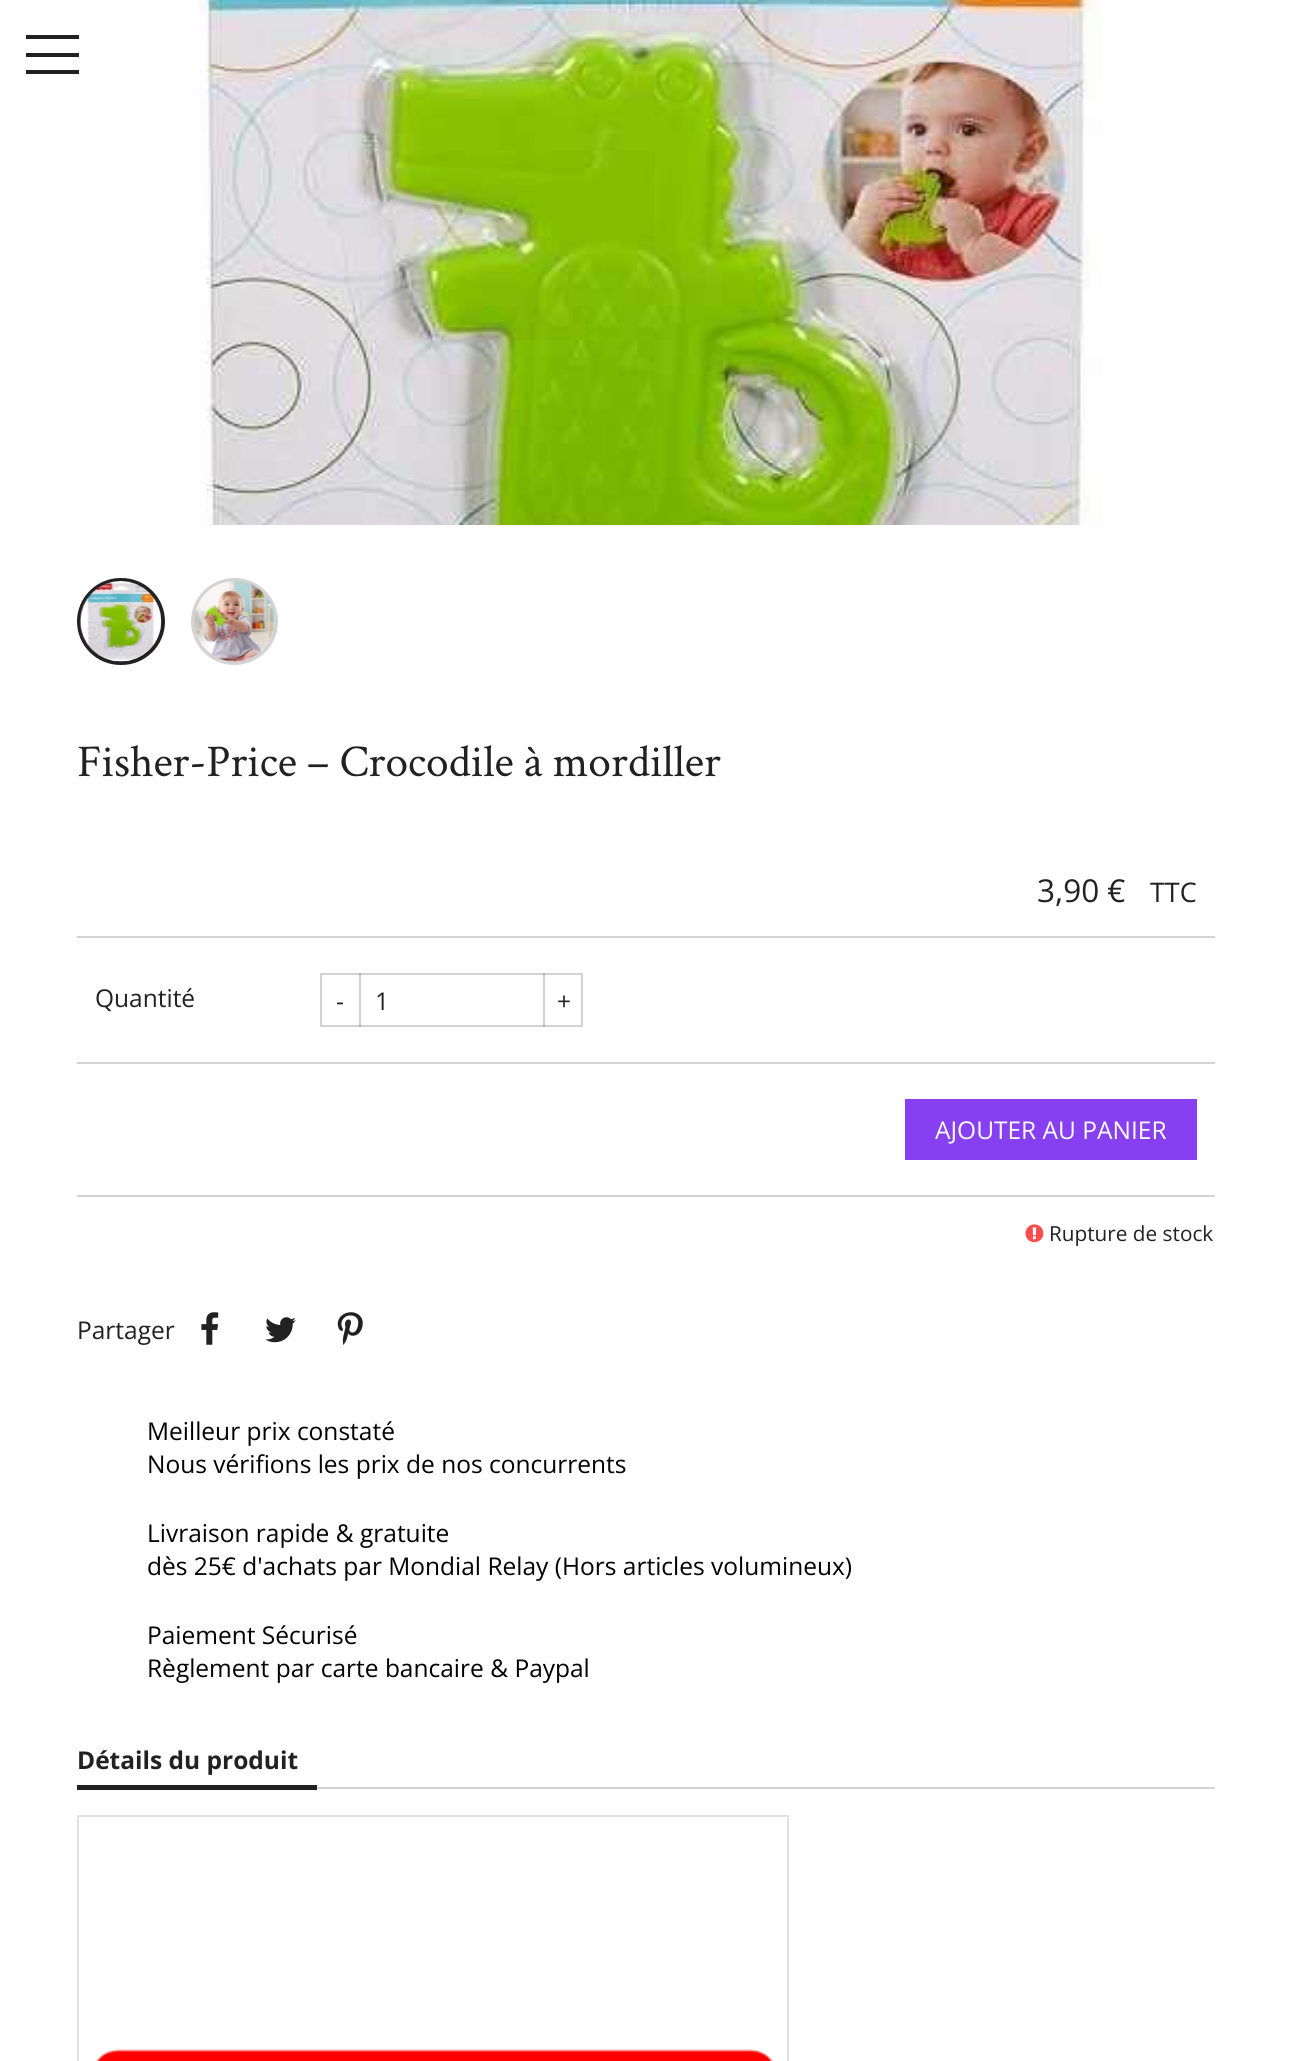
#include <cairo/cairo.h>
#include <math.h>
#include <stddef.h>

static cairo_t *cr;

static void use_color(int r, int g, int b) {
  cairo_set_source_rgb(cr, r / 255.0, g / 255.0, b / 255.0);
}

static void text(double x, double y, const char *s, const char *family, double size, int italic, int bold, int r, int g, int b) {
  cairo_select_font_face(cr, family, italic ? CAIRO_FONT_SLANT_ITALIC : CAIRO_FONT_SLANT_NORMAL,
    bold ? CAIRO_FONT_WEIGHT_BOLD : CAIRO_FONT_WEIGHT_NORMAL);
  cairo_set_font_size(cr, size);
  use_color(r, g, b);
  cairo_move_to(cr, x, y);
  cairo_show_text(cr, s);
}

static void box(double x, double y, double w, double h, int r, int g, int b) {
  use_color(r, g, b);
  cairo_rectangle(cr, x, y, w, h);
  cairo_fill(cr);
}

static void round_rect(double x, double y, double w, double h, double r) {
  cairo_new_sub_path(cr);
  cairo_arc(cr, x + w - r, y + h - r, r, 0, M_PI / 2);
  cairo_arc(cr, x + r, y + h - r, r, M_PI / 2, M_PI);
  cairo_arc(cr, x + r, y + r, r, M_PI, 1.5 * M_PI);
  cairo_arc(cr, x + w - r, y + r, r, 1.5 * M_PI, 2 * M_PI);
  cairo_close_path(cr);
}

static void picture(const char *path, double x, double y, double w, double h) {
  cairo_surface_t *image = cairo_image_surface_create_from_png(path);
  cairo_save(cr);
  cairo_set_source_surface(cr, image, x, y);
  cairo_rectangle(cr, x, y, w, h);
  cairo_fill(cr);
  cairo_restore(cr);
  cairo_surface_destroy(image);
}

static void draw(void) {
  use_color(255, 255, 255);
  cairo_paint(cr);
  box(26, 35, 53, 4, 33, 33, 33);
  box(26, 53, 53, 4, 33, 33, 33);
  box(26, 70, 53, 4, 33, 33, 33);
  picture("img_01.png", 199, 0, 904, 525);
  round_rect(79, 580, 84, 83, 41.5);
  cairo_set_line_width(cr, 4);
  cairo_stroke(cr);
  picture("img_02.png", 80, 581, 82, 81);
  cairo_arc(cr, 234.5, 621.5, 41.5, 0, 2 * M_PI);
  use_color(211, 211, 211);
  cairo_stroke(cr);
  picture("img_03.png", 194, 581, 81, 81);
  box(77, 936, 1138, 2, 211, 211, 211);
  cairo_rectangle(cr, 321, 974, 261, 52);
  cairo_set_line_width(cr, 2);
  cairo_stroke(cr);
  cairo_set_source_rgba(cr, 0.129, 0.129, 0.129, 0.2);
  cairo_rectangle(cr, 359, 973, 2, 54);
  cairo_fill(cr);
  cairo_rectangle(cr, 543, 973, 2, 54);
  cairo_fill(cr);
  box(77, 1062, 1138, 2, 211, 211, 211);
  box(77, 1195, 1138, 2, 211, 211, 211);
  box(905, 1099, 292, 61, 134, 64, 242);
  picture("img_04.png", 1025, 1224, 19, 19);
  picture("img_05.png", 201, 1312, 18, 33);
  picture("img_06.png", 265, 1317, 31, 26);
  picture("img_07.png", 337, 1312, 26, 33);
  box(317, 1787, 898, 2, 211, 211, 211);
  box(77, 1785, 240, 5, 33, 33, 33);
  cairo_rectangle(cr, 78, 1816, 710, 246);
  use_color(222, 226, 230);
  cairo_stroke(cr);
  picture("img_08.png", 96, 2048, 677, 13);
  text(77, 776, "Fisher-Price – Crocodile à mordiller", "Crimson Text", 45.5, 0, 0, 33, 33, 33);
  text(1037, 902, "3,90 €", "Open Sans", 31.5, 0, 0, 33, 33, 33);
  text(1150, 902, "TTC", "Open Sans", 27, 0, 0, 33, 33, 33);
  text(95, 1007, "Quantité", "Open Sans", 24.5, 0, 0, 33, 33, 33);
  text(336, 1010, "-", "Open Sans", 24.5, 0, 0, 33, 33, 33);
  text(375, 1010, "1", "Open Sans", 24.5, 0, 0, 33, 33, 33);
  text(557, 1010, "+", "Open Sans", 24.5, 0, 0, 33, 33, 33);
  text(935, 1139, "AJOUTER AU PANIER", "Open Sans", 24.5, 0, 0, 255, 255, 255);
  text(1049, 1241, "Rupture de stock", "Open Sans", 20.75, 0, 0, 33, 33, 33);
  text(77, 1339, "Partager", "Open Sans", 24.5, 0, 0, 33, 33, 33);
  text(147, 1440, "Meilleur prix constaté", "Open Sans", 24.5, 0, 0, 0, 0, 0);
  text(147, 1473, "Nous vérifions les prix de nos concurrents", "Open Sans", 24.5, 0, 0, 0, 0, 0);
  text(147, 1542, "Livraison rapide & gratuite", "Open Sans", 24.5, 0, 0, 0, 0, 0);
  text(147, 1575, "dès 25€ d'achats par Mondial Relay (Hors articles volumineux)", "Open Sans", 24.5, 0, 0, 0, 0, 0);
  text(147, 1644, "Paiement Sécurisé", "Open Sans", 24.5, 0, 0, 0, 0, 0);
  text(147, 1677, "Règlement par carte bancaire & Paypal", "Open Sans", 24.5, 0, 0, 0, 0, 0);
  text(77, 1769, "Détails du produit", "Open Sans", 24.5, 0, 1, 33, 33, 33);
}

int main(void) {
  cairo_surface_t *surface = cairo_image_surface_create(CAIRO_FORMAT_RGB24, 1290, 2061);
  cr = cairo_create(surface);
  cairo_font_options_t *options = cairo_font_options_create();
  cairo_font_options_set_hint_metrics(options, CAIRO_HINT_METRICS_OFF);
  cairo_font_options_set_hint_style(options, CAIRO_HINT_STYLE_NONE);
  cairo_set_font_options(cr, options);
  cairo_set_miter_limit(cr, 4);
  draw();
  cairo_surface_write_to_png(surface, "out.png");
  cairo_font_options_destroy(options);
  cairo_destroy(cr);
  cairo_surface_destroy(surface);
  return 0;
}
